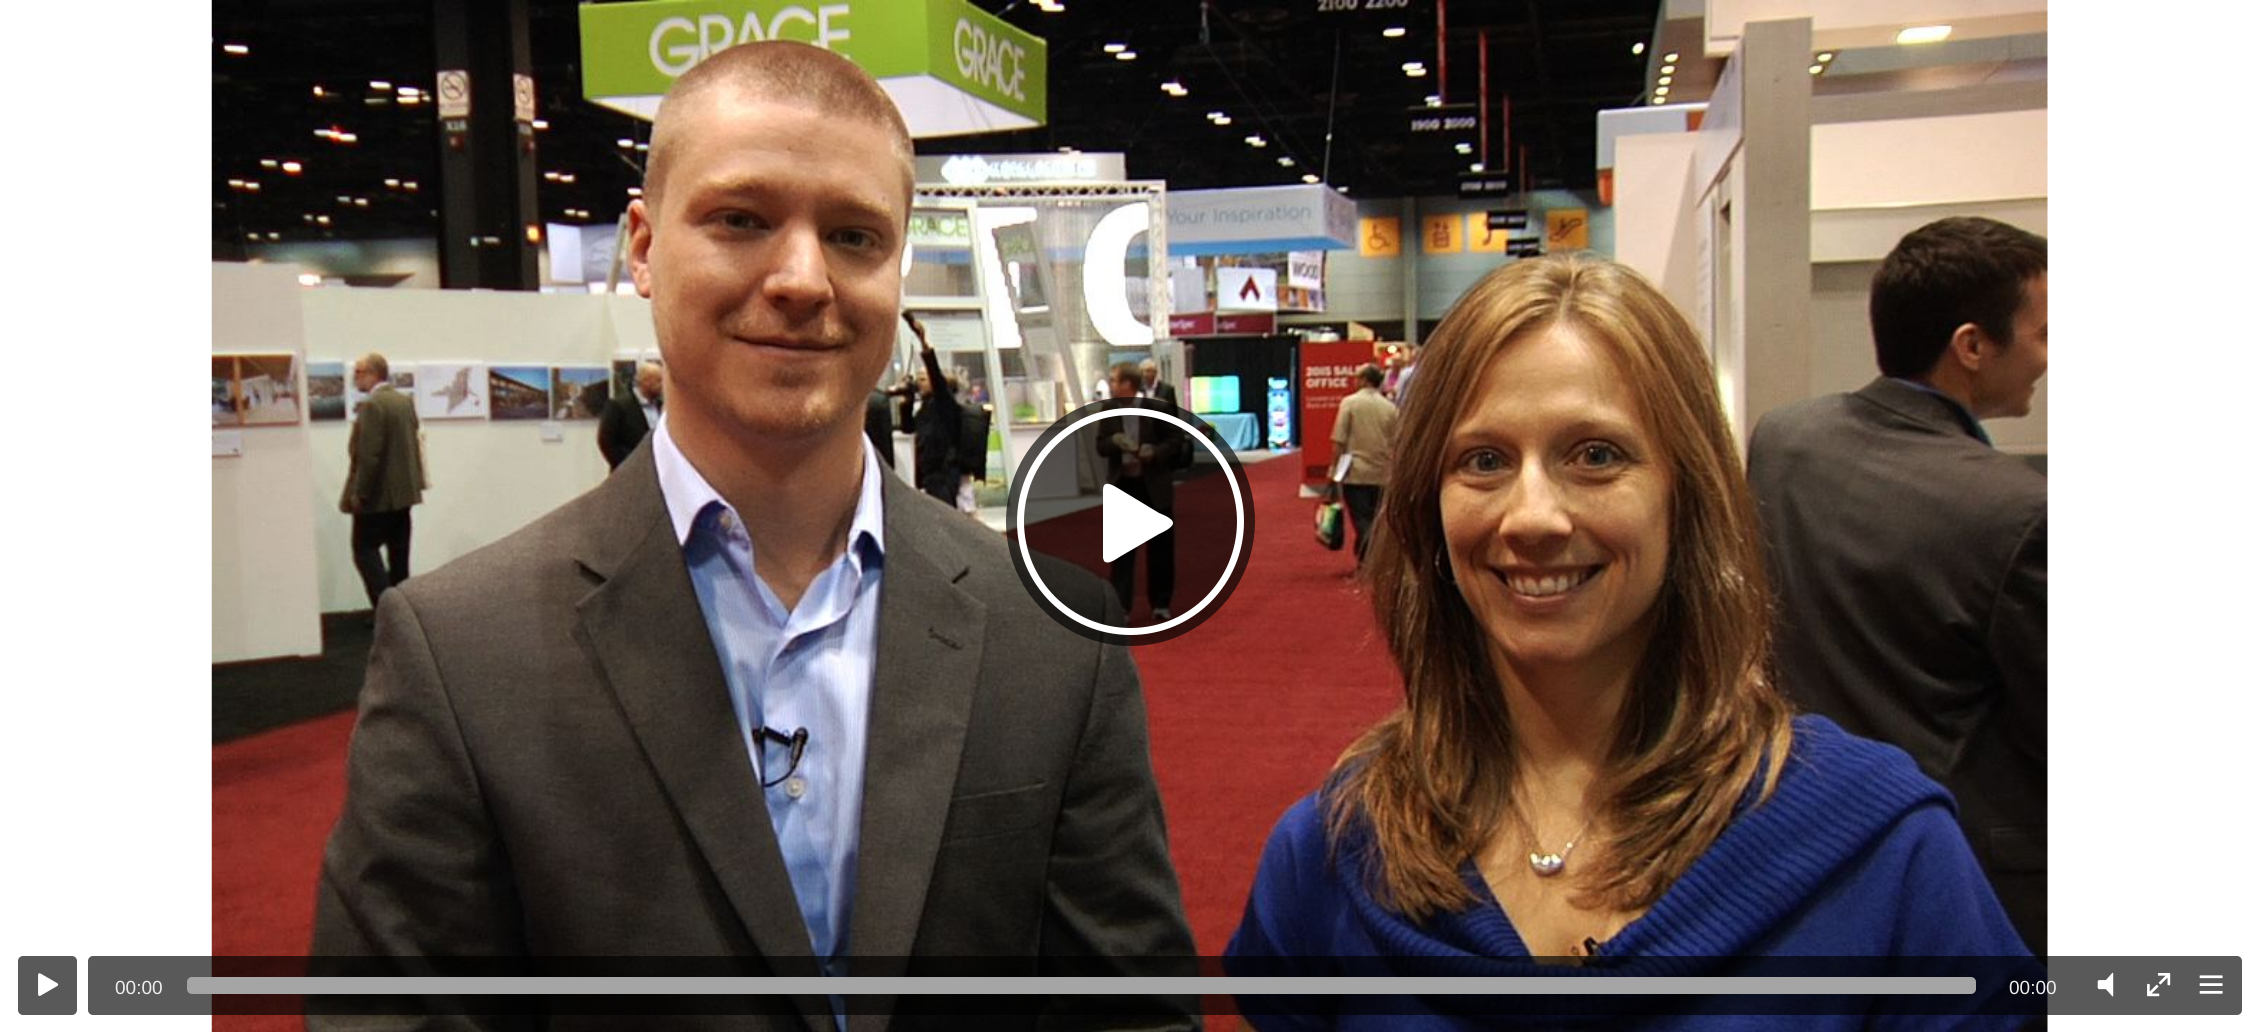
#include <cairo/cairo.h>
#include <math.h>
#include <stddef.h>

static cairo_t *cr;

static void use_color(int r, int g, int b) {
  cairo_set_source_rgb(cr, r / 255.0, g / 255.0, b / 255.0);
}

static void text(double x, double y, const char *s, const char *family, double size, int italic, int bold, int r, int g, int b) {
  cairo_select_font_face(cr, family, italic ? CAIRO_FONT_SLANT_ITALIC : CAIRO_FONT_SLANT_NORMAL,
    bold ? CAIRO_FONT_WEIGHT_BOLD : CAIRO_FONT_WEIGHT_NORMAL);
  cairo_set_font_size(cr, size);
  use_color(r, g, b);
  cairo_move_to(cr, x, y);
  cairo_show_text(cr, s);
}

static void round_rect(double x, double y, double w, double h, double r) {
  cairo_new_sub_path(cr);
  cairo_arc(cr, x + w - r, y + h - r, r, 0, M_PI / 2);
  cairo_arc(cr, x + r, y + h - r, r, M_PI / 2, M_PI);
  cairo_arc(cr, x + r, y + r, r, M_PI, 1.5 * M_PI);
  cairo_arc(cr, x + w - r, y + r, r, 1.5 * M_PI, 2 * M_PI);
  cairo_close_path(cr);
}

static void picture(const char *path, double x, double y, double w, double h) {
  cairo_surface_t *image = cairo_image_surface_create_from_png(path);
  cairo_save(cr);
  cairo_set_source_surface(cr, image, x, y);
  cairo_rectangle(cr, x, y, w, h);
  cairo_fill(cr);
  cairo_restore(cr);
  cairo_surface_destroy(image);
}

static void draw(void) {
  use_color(255, 255, 255);
  cairo_paint(cr);
  picture("img_01.png", 211, 0, 1837, 1032);
  cairo_set_source_rgba(cr, 0, 0, 0, 0.65);
  cairo_arc(cr, 1130.5, 521.5, 124.5, 0, 2 * M_PI);
  cairo_fill(cr);
  cairo_arc(cr, 1130.5, 521.5, 110, 0, 2 * M_PI);
  use_color(255, 255, 255);
  cairo_set_line_width(cr, 7);
  cairo_stroke(cr);
  cairo_new_path(cr);
  cairo_move_to(cr, 1103, 490);
  cairo_curve_to(cr, 1103, 477, 1117, 488, 1121, 490);
  cairo_line_to(cr, 1159, 513);
  cairo_curve_to(cr, 1161, 514, 1173, 518, 1173, 523);
  cairo_curve_to(cr, 1173, 528, 1161, 533, 1159, 534);
  cairo_line_to(cr, 1121, 556);
  cairo_curve_to(cr, 1119, 557, 1108, 566, 1104, 561);
  cairo_line_to(cr, 1103, 558);
  cairo_close_path(cr);
  cairo_fill(cr);
  cairo_set_source_rgba(cr, 0, 0, 0, 0.65);
  round_rect(88, 956, 2154, 59, 5);
  cairo_fill(cr);
  use_color(89, 89, 89);
  round_rect(18, 956, 59, 59, 5);
  cairo_fill(cr);
  picture("img_02.png", 38, 973, 21, 23);
  use_color(165, 165, 165);
  round_rect(187, 977, 1789, 17, 5);
  cairo_fill(cr);
  picture("img_03.png", 2097, 972, 17, 25);
  picture("img_04.png", 2147, 973, 24, 24);
  picture("img_05.png", 2199, 975, 24, 19);
  text(115, 994, "00:00", "Liberation Sans", 19, 0, 0, 238, 238, 238);
  text(2009, 994, "00:00", "Liberation Sans", 19, 0, 0, 238, 238, 238);
}

int main(void) {
  cairo_surface_t *surface = cairo_image_surface_create(CAIRO_FORMAT_RGB24, 2259, 1032);
  cr = cairo_create(surface);
  cairo_font_options_t *options = cairo_font_options_create();
  cairo_font_options_set_hint_metrics(options, CAIRO_HINT_METRICS_OFF);
  cairo_font_options_set_hint_style(options, CAIRO_HINT_STYLE_NONE);
  cairo_set_font_options(cr, options);
  cairo_set_miter_limit(cr, 4);
  draw();
  cairo_surface_write_to_png(surface, "out.png");
  cairo_font_options_destroy(options);
  cairo_destroy(cr);
  cairo_surface_destroy(surface);
  return 0;
}
